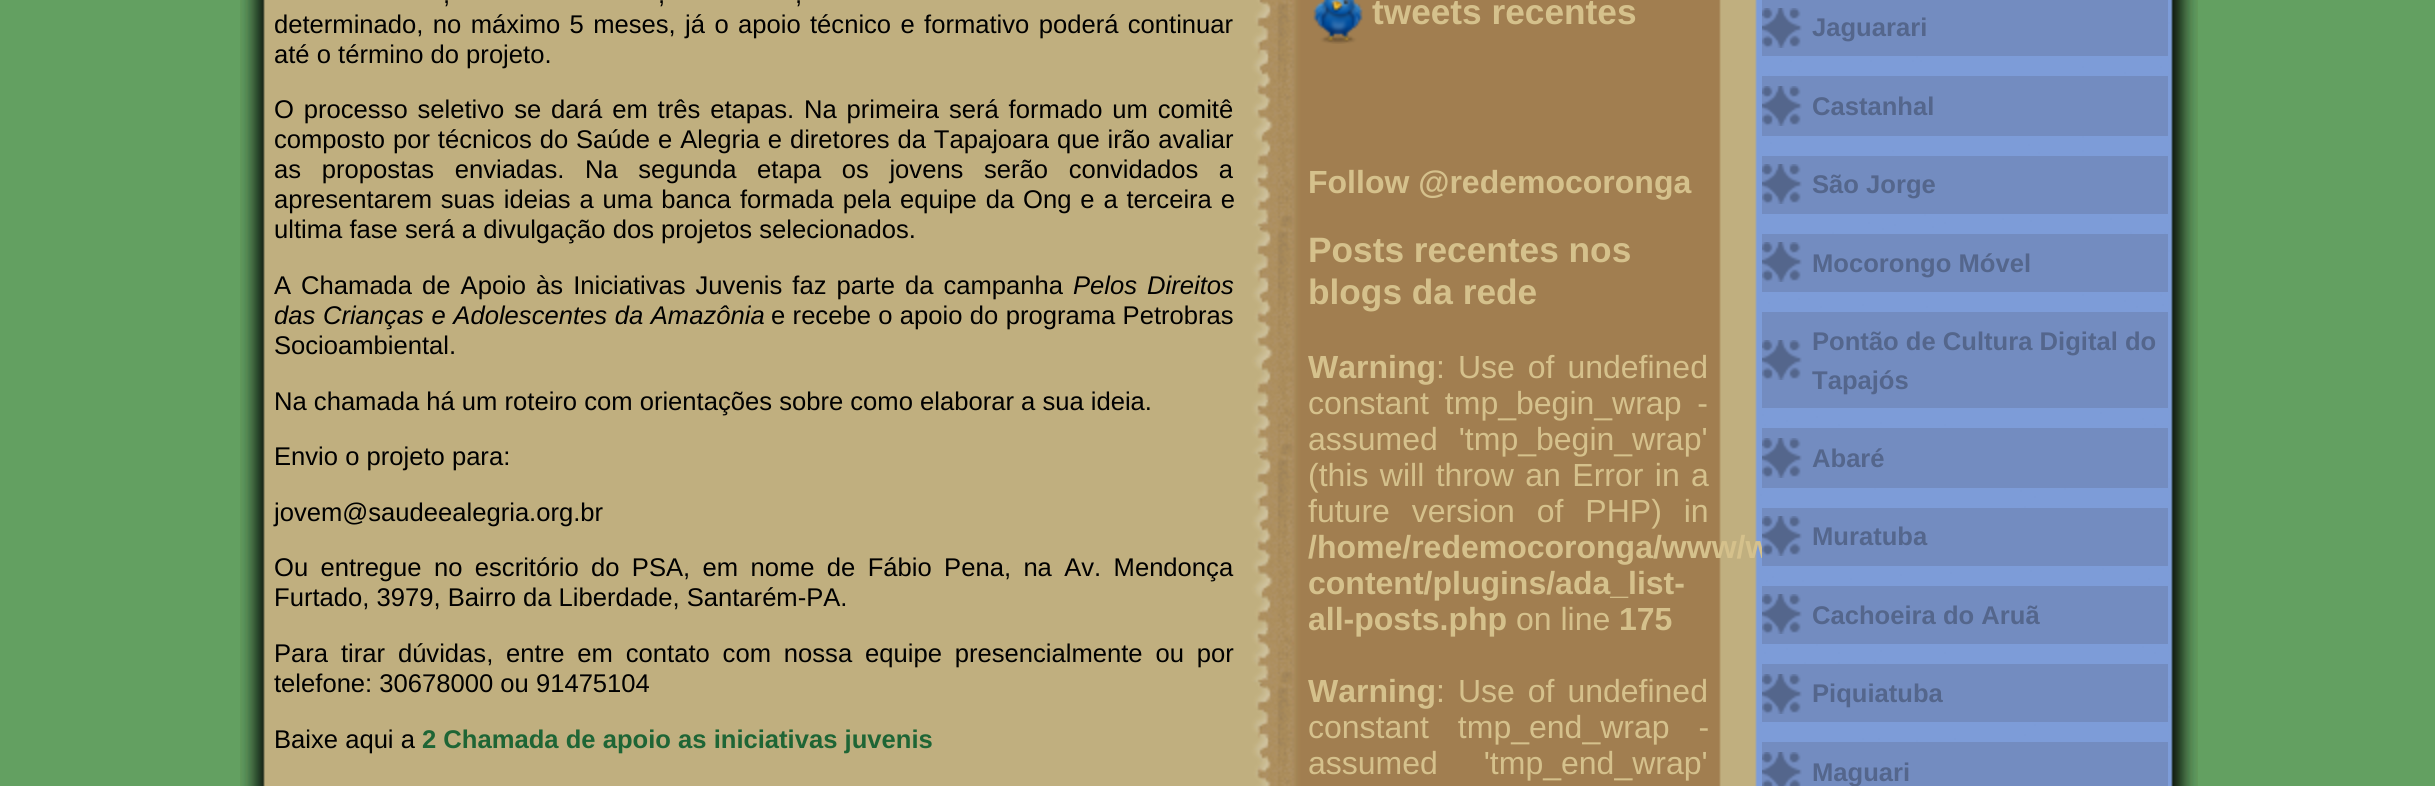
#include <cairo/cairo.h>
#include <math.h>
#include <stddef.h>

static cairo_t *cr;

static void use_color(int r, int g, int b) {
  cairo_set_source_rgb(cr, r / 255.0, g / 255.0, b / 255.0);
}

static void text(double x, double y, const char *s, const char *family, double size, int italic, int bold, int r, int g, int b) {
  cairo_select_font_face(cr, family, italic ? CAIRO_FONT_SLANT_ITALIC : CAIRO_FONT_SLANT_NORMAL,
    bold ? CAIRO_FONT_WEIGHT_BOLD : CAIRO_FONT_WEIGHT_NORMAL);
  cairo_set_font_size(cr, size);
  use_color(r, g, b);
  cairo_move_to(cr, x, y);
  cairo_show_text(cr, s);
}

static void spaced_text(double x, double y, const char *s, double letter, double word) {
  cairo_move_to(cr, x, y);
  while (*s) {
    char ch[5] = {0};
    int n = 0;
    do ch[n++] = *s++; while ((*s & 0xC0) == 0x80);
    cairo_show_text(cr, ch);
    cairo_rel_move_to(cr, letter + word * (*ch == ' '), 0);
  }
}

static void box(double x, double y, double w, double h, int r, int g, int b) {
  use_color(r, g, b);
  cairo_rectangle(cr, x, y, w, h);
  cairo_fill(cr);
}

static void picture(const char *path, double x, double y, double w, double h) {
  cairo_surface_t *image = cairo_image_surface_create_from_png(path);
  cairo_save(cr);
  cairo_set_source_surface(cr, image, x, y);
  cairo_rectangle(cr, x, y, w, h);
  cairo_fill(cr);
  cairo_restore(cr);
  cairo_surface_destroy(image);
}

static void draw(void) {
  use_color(99, 160, 97);
  cairo_paint(cr);
  picture("img_01.png", 240, 0, 1958, 786);
  picture("img_02.png", 1313, 0, 50, 44);
  box(1762, 0, 406, 56, 115, 140, 192);
  picture("img_03.png", 1762, 8, 40, 40);
  box(1762, 76, 406, 60, 115, 140, 192);
  picture("img_03.png", 1762, 86, 40, 40);
  box(1762, 156, 406, 58, 115, 140, 192);
  picture("img_03.png", 1762, 164, 40, 40);
  box(1762, 234, 406, 58, 115, 140, 192);
  picture("img_03.png", 1762, 242, 40, 40);
  box(1762, 312, 406, 96, 115, 140, 192);
  picture("img_03.png", 1762, 340, 40, 40);
  box(1762, 428, 406, 60, 115, 140, 192);
  picture("img_03.png", 1762, 438, 40, 40);
  box(1762, 586, 406, 58, 115, 140, 192);
  picture("img_03.png", 1762, 594, 40, 40);
  box(1762, 664, 406, 58, 115, 140, 192);
  picture("img_03.png", 1762, 674, 40, 40);
  box(1762, 742, 406, 44, 115, 140, 192);
  picture("img_04.png", 1762, 752, 40, 34);
  cairo_select_font_face(cr, "Liberation Sans", CAIRO_FONT_SLANT_NORMAL, CAIRO_FONT_WEIGHT_NORMAL);
  cairo_set_font_size(cr, 25.6);
  use_color(0, 0, 0);
  spaced_text(443, 3, ",", 0, 7);
  spaced_text(658, 3, ",", 0, 7);
  spaced_text(795, 3, ",", 0, 7);
  spaced_text(274, 33, "determinado, no máximo 5 meses, já o apoio técnico e formativo poderá continuar", 0, 2.25);
  text(274, 63, "até o término do projeto.", "Liberation Sans", 25.6, 0, 0, 0, 0, 0);
  spaced_text(274, 118, "O processo seletivo se dará em três etapas. Na primeira será formado um comitê", 0, 2.75);
  spaced_text(274, 148, "composto por técnicos do Saúde e Alegria e diretores da Tapajoara que irão avaliar", 0, 0.8);
  spaced_text(274, 178, "as propostas enviadas. Na segunda etapa os jovens serão convidados a", 0, 13.5);
  spaced_text(274, 208, "apresentarem suas ideias a uma banca formada pela equipe da Ong e a terceira e", 0, 1.75);
  text(274, 238, "ultima fase será a divulgação dos projetos selecionados.", "Liberation Sans", 25.6, 0, 0, 0, 0, 0);
  spaced_text(274, 294, "A Chamada de Apoio às Iniciativas Juvenis faz parte da campanha", 0, 2.9);
  cairo_select_font_face(cr, "Liberation Sans", CAIRO_FONT_SLANT_ITALIC, CAIRO_FONT_WEIGHT_NORMAL);
  spaced_text(1073, 294, "Pelos Direitos", 0, 2.9);
  spaced_text(274, 324, "das Crianças e Adolescentes da Amazônia", 0, 0.5);
  cairo_select_font_face(cr, "Liberation Sans", CAIRO_FONT_SLANT_NORMAL, CAIRO_FONT_WEIGHT_NORMAL);
  spaced_text(771, 324, "e recebe o apoio do programa Petrobras", 0, 0.25);
  text(274, 354, "Socioambiental.", "Liberation Sans", 25.6, 0, 0, 0, 0, 0);
  text(274, 410, "Na chamada há um roteiro com orientações sobre como elaborar a sua ideia.", "Liberation Sans", 25.6, 0, 0, 0, 0, 0);
  text(274, 465, "Envio o projeto para:", "Liberation Sans", 25.6, 0, 0, 0, 0, 0);
  text(274, 521, "jovem@saudeealegria.org.br", "Liberation Sans", 25.6, 0, 0, 0, 0, 0);
  spaced_text(274, 576, "Ou entregue no escritório do PSA, em nome de Fábio Pena, na Av. Mendonça", 0, 5.25);
  text(274, 606, "Furtado, 3979, Bairro da Liberdade, Santarém-PA.", "Liberation Sans", 25.6, 0, 0, 0, 0, 0);
  spaced_text(274, 662, "Para tirar dúvidas, entre em contato com nossa equipe presencialmente ou por", 0, 5.75);
  text(274, 692, "telefone: 30678000 ou 91475104", "Liberation Sans", 25.6, 0, 0, 0, 0, 0);
  text(274, 748, "Baixe aqui a", "Liberation Sans", 25.6, 0, 0, 0, 0, 0);
  text(422, 748, "2 Chamada de apoio as iniciativas juvenis", "Liberation Sans", 25.6, 0, 1, 30, 101, 53);
  text(1372, 24, "tweets recentes", "Liberation Sans", 35.25, 0, 1, 213, 193, 140);
  text(1308, 193, "Follow @redemocoronga", "Liberation Sans", 32, 0, 1, 213, 193, 140);
  text(1308, 262, "Posts recentes nos", "Liberation Sans", 35.25, 0, 1, 213, 193, 140);
  text(1308, 304, "blogs da rede", "Liberation Sans", 35.25, 0, 1, 213, 193, 140);
  text(1308, 378, "Warning", "Liberation Sans", 32, 0, 1, 213, 193, 140);
  text(1436, 378, ":", "Liberation Sans", 32, 0, 0, 213, 193, 140);
  spaced_text(1458, 378, "Use of undefined", 0, 4);
  spaced_text(1308, 414, "constant tmp_begin_wrap -", 0, 7);
  spaced_text(1308, 450, "assumed 'tmp_begin_wrap'", 0, 12);
  spaced_text(1308, 486, "(this will throw an Error in a", 0, 2.5);
  spaced_text(1308, 522, "future version of PHP) in", 0, 13);
  text(1308, 558, "/home/redemocoronga/www/w", "Liberation Sans", 32, 0, 1, 213, 193, 140);
  text(1308, 594, "content/plugins/ada_list-", "Liberation Sans", 32, 0, 1, 213, 193, 140);
  text(1308, 630, "all-posts.php", "Liberation Sans", 32, 0, 1, 213, 193, 140);
  text(1516, 630, "on line", "Liberation Sans", 32, 0, 0, 213, 193, 140);
  text(1619, 630, "175", "Liberation Sans", 32, 0, 1, 213, 193, 140);
  text(1308, 702, "Warning", "Liberation Sans", 32, 0, 1, 213, 193, 140);
  text(1436, 702, ":", "Liberation Sans", 32, 0, 0, 213, 193, 140);
  spaced_text(1458, 702, "Use of undefined", 0, 4);
  spaced_text(1308, 738, "constant tmp_end_wrap -", 0, 20);
  spaced_text(1308, 774, "assumed 'tmp_end_wrap'", 0, 37);
  text(1812, 36, "Jaguarari", "Liberation Sans", 25.6, 0, 1, 84, 102, 140);
  text(1812, 115, "Castanhal", "Liberation Sans", 25.6, 0, 1, 84, 102, 140);
  text(1812, 193, "São Jorge", "Liberation Sans", 25.6, 0, 1, 84, 102, 140);
  text(1812, 272, "Mocorongo Móvel", "Liberation Sans", 25.6, 0, 1, 84, 102, 140);
  text(1812, 350, "Pontão de Cultura Digital do", "Liberation Sans", 25.6, 0, 1, 84, 102, 140);
  text(1812, 389, "Tapajós", "Liberation Sans", 25.6, 0, 1, 84, 102, 140);
  text(1812, 467, "Abaré", "Liberation Sans", 25.6, 0, 1, 84, 102, 140);
  box(1762, 508, 406, 58, 115, 140, 192);
  picture("img_03.png", 1762, 516, 40, 40);
  text(1812, 545, "Muratuba", "Liberation Sans", 25.6, 0, 1, 84, 102, 140);
  text(1812, 624, "Cachoeira do Aruã", "Liberation Sans", 25.6, 0, 1, 84, 102, 140);
  text(1812, 702, "Piquiatuba", "Liberation Sans", 25.6, 0, 1, 84, 102, 140);
  text(1812, 781, "Maguari", "Liberation Sans", 25.6, 0, 1, 84, 102, 140);
}

int main(void) {
  cairo_surface_t *surface = cairo_image_surface_create(CAIRO_FORMAT_RGB24, 2435, 786);
  cr = cairo_create(surface);
  cairo_font_options_t *options = cairo_font_options_create();
  cairo_font_options_set_hint_metrics(options, CAIRO_HINT_METRICS_OFF);
  cairo_font_options_set_hint_style(options, CAIRO_HINT_STYLE_NONE);
  cairo_set_font_options(cr, options);
  cairo_set_miter_limit(cr, 4);
  draw();
  cairo_surface_write_to_png(surface, "out.png");
  cairo_font_options_destroy(options);
  cairo_destroy(cr);
  cairo_surface_destroy(surface);
  return 0;
}
